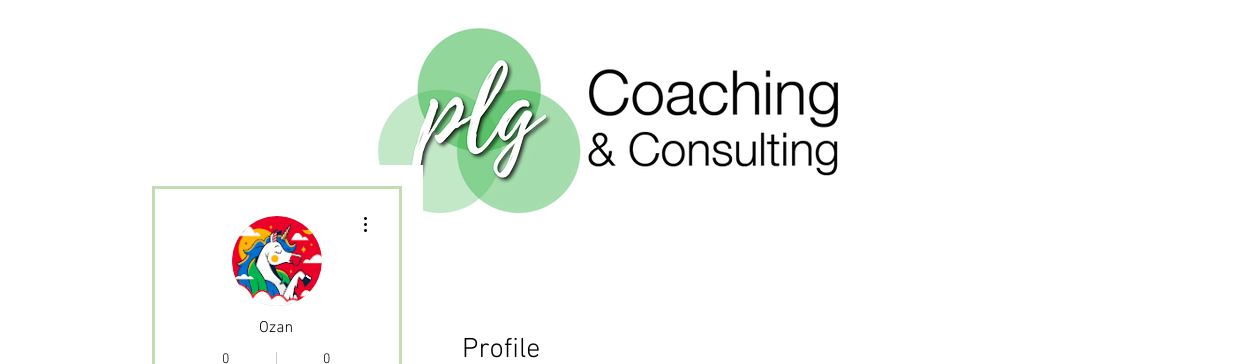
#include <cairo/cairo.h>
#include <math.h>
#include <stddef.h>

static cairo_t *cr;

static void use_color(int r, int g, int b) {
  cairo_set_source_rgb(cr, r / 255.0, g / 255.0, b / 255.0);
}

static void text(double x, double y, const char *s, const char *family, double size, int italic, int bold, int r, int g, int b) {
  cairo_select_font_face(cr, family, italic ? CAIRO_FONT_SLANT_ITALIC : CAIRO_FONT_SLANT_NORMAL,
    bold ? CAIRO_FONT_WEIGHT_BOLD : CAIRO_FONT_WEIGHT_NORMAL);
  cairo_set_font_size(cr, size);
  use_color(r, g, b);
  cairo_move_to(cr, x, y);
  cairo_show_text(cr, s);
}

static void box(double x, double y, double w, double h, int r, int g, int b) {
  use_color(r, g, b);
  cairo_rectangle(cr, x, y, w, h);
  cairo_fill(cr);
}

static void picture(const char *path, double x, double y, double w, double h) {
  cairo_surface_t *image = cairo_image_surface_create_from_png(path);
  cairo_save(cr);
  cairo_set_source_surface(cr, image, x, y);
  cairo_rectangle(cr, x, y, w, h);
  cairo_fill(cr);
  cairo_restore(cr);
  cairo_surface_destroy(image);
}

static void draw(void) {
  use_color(255, 255, 255);
  cairo_paint(cr);
  picture("img_01.png", 378, 28, 461, 185);
  box(379, 165, 44, 46, 255, 255, 255);
  cairo_rectangle(cr, 153.5, 187.5, 247, 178);
  use_color(195, 221, 177);
  cairo_set_line_width(cr, 3);
  cairo_stroke(cr);
  use_color(216, 216, 216);
  cairo_arc(cr, 277, 261, 45, 0, 2 * M_PI);
  cairo_fill(cr);
  picture("img_02.png", 232, 216, 90, 90);
  picture("img_03.png", 364, 217, 3, 15);
  box(276, 352, 1, 12, 204, 204, 204);
  text(259, 332, "Ozan", "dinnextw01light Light", 16, 0, 0, 0, 0, 0);
  text(222, 363, "0", "dinnextw01light Light", 14, 0, 0, 0, 0, 0);
  text(323, 363, "0", "dinnextw01light Light", 14, 0, 0, 0, 0, 0);
  text(462, 357, "Profile", "dinnextw01light Light", 28, 0, 0, 0, 0, 0);
}

int main(void) {
  cairo_surface_t *surface = cairo_image_surface_create(CAIRO_FORMAT_RGB24, 1243, 364);
  cr = cairo_create(surface);
  cairo_font_options_t *options = cairo_font_options_create();
  cairo_font_options_set_hint_metrics(options, CAIRO_HINT_METRICS_OFF);
  cairo_font_options_set_hint_style(options, CAIRO_HINT_STYLE_NONE);
  cairo_set_font_options(cr, options);
  cairo_set_miter_limit(cr, 4);
  draw();
  cairo_surface_write_to_png(surface, "out.png");
  cairo_font_options_destroy(options);
  cairo_destroy(cr);
  cairo_surface_destroy(surface);
  return 0;
}
